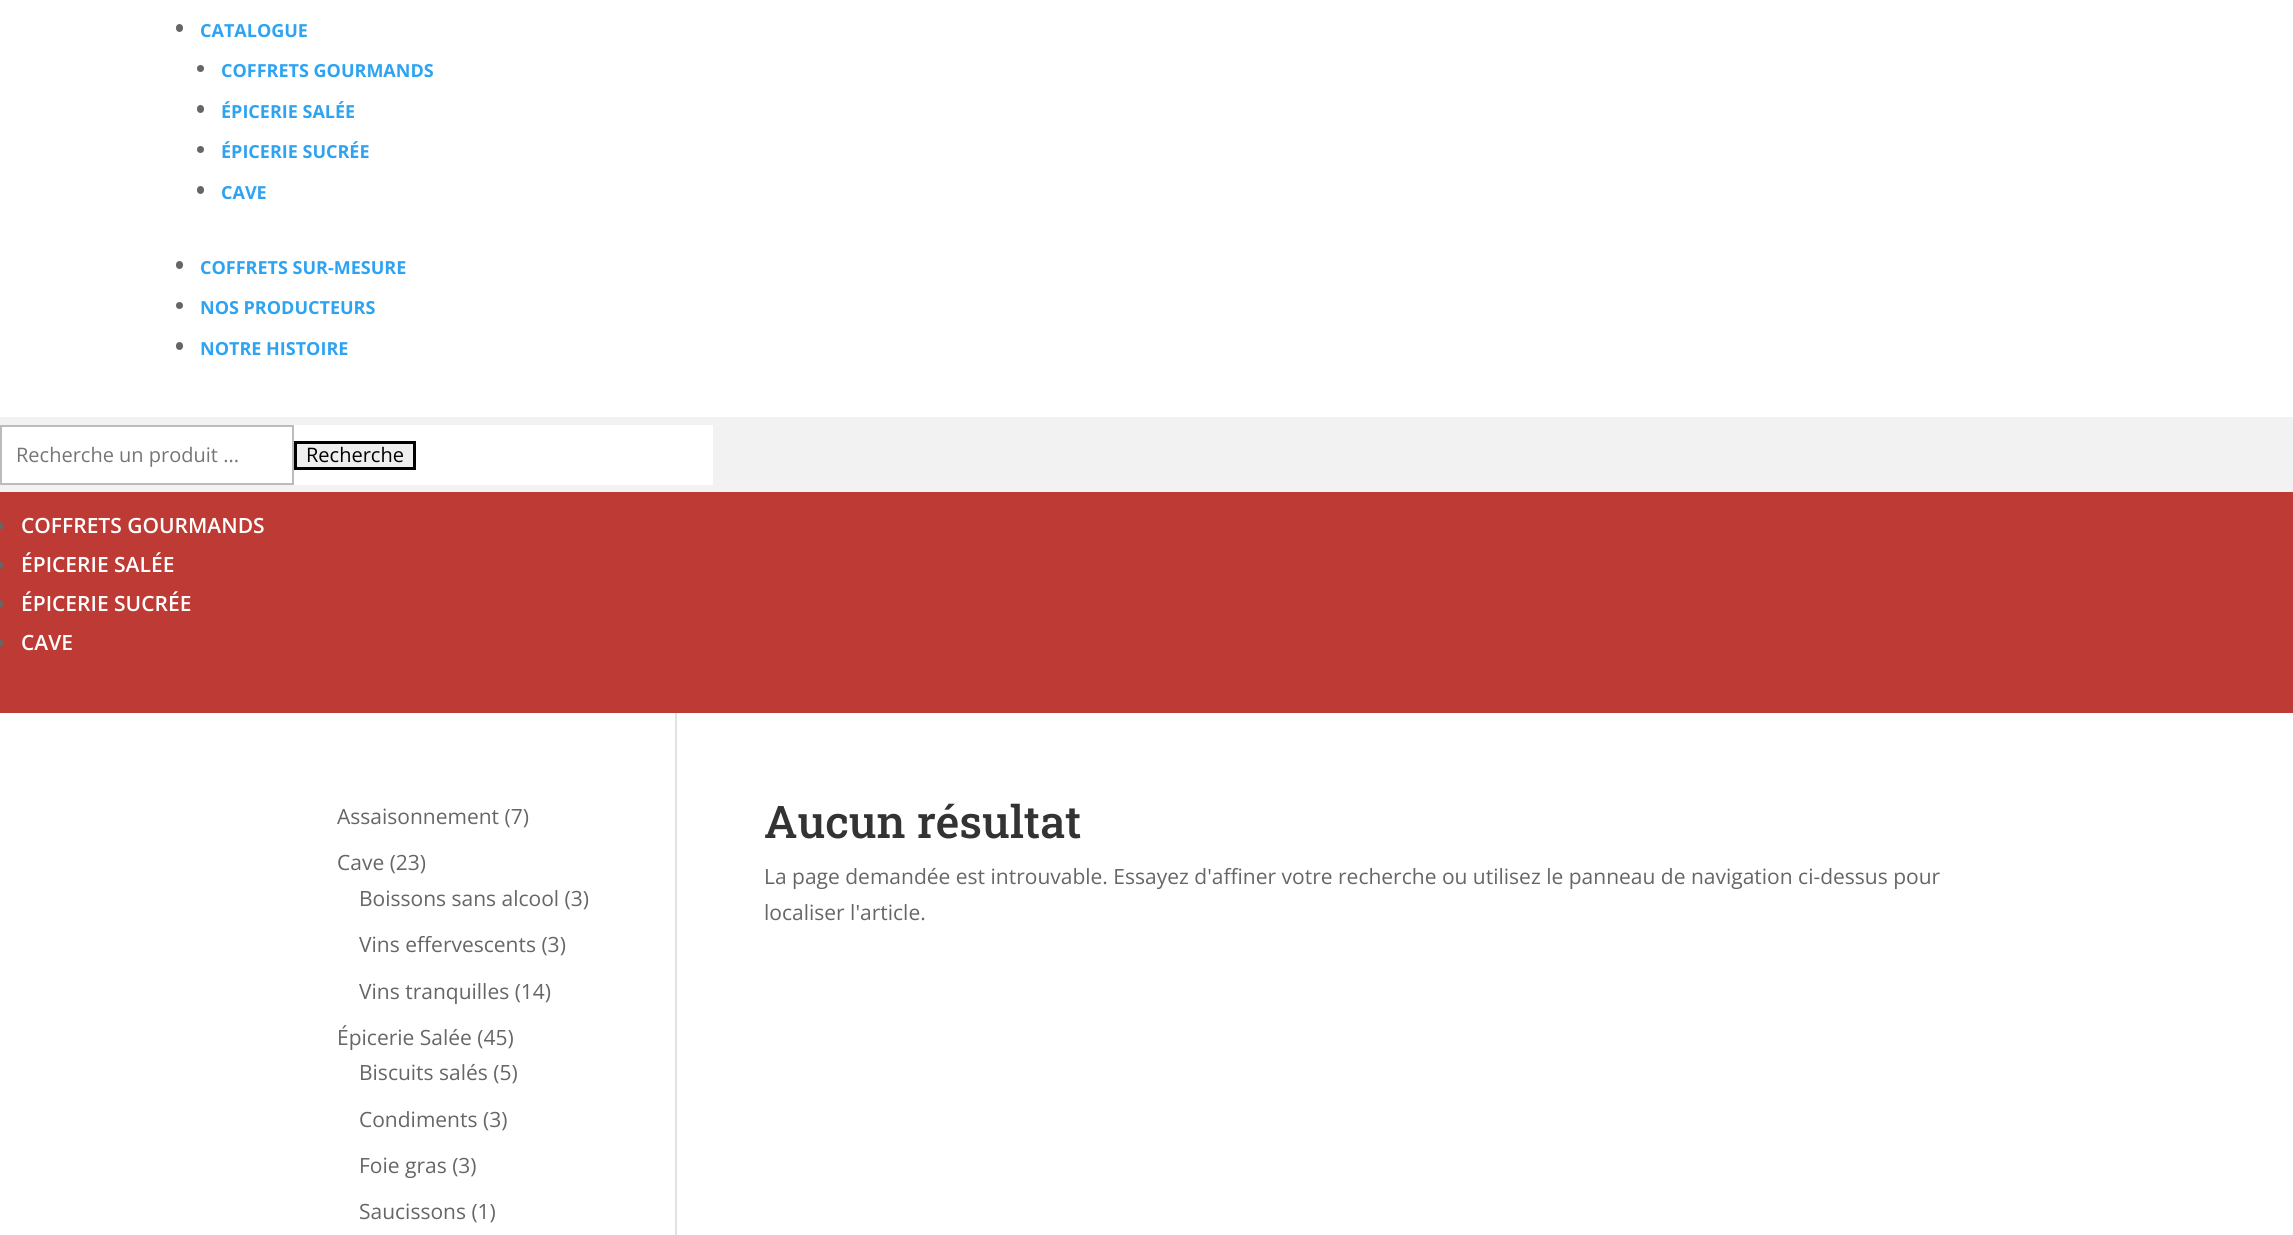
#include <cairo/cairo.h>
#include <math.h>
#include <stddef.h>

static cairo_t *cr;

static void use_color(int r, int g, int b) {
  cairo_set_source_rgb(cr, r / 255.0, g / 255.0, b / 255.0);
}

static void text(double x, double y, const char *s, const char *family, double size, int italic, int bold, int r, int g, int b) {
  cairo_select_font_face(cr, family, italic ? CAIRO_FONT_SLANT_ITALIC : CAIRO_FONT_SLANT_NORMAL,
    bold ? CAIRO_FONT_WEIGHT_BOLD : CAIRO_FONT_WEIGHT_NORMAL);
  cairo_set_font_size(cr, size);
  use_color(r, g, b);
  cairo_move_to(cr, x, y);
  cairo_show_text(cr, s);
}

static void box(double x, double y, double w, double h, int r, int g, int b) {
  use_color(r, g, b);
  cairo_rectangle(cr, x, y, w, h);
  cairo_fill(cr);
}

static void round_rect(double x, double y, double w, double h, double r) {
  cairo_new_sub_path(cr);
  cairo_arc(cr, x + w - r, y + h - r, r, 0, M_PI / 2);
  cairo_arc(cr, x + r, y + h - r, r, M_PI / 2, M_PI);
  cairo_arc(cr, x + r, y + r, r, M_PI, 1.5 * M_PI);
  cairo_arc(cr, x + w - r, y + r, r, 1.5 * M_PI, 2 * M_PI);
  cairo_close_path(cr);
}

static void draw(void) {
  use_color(255, 255, 255);
  cairo_paint(cr);
  use_color(102, 102, 102);
  round_rect(176, 24, 7, 8, 3.5);
  cairo_fill(cr);
  cairo_arc(cr, 200.5, 68.5, 3.5, 0, 2 * M_PI);
  cairo_fill(cr);
  round_rect(197, 105, 7, 8, 3.5);
  cairo_fill(cr);
  cairo_arc(cr, 200.5, 149.5, 3.5, 0, 2 * M_PI);
  cairo_fill(cr);
  round_rect(197, 186, 7, 8, 3.5);
  cairo_fill(cr);
  round_rect(176, 261, 7, 8, 3.5);
  cairo_fill(cr);
  cairo_arc(cr, 179.5, 305.5, 3.5, 0, 2 * M_PI);
  cairo_fill(cr);
  round_rect(176, 342, 7, 8, 3.5);
  cairo_fill(cr);
  box(0, 417, 2293, 75, 242, 242, 243);
  box(2, 425, 711, 60, 255, 255, 255);
  cairo_rectangle(cr, 1, 426, 292, 58);
  use_color(187, 187, 187);
  cairo_stroke(cr);
  use_color(239, 239, 239);
  cairo_rectangle(cr, 295.5, 442.5, 119, 26);
  cairo_fill_preserve(cr);
  use_color(0, 0, 0);
  cairo_set_line_width(cr, 3);
  cairo_stroke(cr);
  box(0, 492, 2293, 221, 190, 58, 52);
  use_color(102, 102, 102);
  round_rect(-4, 522, 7, 8, 3.5);
  cairo_fill(cr);
  round_rect(-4, 561, 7, 8, 3.5);
  cairo_fill(cr);
  round_rect(-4, 600, 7, 8, 3.5);
  cairo_fill(cr);
  round_rect(-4, 639, 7, 8, 3.5);
  cairo_fill(cr);
  box(675, 713, 2, 522, 226, 226, 226);
  text(200, 37, "CATALOGUE", "Open Sans", 18, 0, 1, 46, 163, 242);
  text(221, 77, "COFFRETS GOURMANDS", "Open Sans", 18, 0, 1, 46, 163, 242);
  text(221, 118, "ÉPICERIE SALÉE", "Open Sans", 18, 0, 1, 46, 163, 242);
  text(221, 158, "ÉPICERIE SUCRÉE", "Open Sans", 18, 0, 1, 46, 163, 242);
  text(221, 199, "CAVE", "Open Sans", 18, 0, 1, 46, 163, 242);
  text(200, 274, "COFFRETS SUR-MESURE", "Open Sans", 18, 0, 1, 46, 163, 242);
  text(200, 314, "NOS PRODUCTEURS", "Open Sans", 18, 0, 1, 46, 163, 242);
  text(200, 355, "NOTRE HISTOIRE", "Open Sans", 18, 0, 1, 46, 163, 242);
  text(16, 462, "Recherche un produit ...", "Open Sans", 20, 0, 0, 117, 117, 117);
  text(306, 462, "Recherche", "Open Sans", 20, 0, 0, 0, 0, 0);
  text(21, 533, "COFFRETS GOURMANDS", "Open Sans SemiBold", 21, 0, 0, 255, 255, 255);
  text(21, 572, "ÉPICERIE SALÉE", "Open Sans SemiBold", 21, 0, 0, 255, 255, 255);
  text(21, 611, "ÉPICERIE SUCRÉE", "Open Sans SemiBold", 21, 0, 0, 255, 255, 255);
  text(21, 650, "CAVE", "Open Sans SemiBold", 21, 0, 0, 255, 255, 255);
  text(337, 824, "Assaisonnement (7)", "Open Sans", 21, 0, 0, 102, 102, 102);
  text(337, 870, "Cave (23)", "Open Sans", 21, 0, 0, 102, 102, 102);
  text(359, 906, "Boissons sans alcool (3)", "Open Sans", 21, 0, 0, 102, 102, 102);
  text(359, 952, "Vins effervescents (3)", "Open Sans", 21, 0, 0, 102, 102, 102);
  text(359, 999, "Vins tranquilles (14)", "Open Sans", 21, 0, 0, 102, 102, 102);
  text(337, 1045, "Épicerie Salée (45)", "Open Sans", 21, 0, 0, 102, 102, 102);
  text(359, 1080, "Biscuits salés (5)", "Open Sans", 21, 0, 0, 102, 102, 102);
  text(359, 1127, "Condiments (3)", "Open Sans", 21, 0, 0, 102, 102, 102);
  text(359, 1173, "Foie gras (3)", "Open Sans", 21, 0, 0, 102, 102, 102);
  text(359, 1219, "Saucissons (1)", "Open Sans", 21, 0, 0, 102, 102, 102);
  text(764, 838, "Aucun résultat", "Roboto Slab Medium", 45, 0, 0, 51, 51, 51);
  text(764, 884, "La page demandée est introuvable. Essayez d'affiner votre recherche ou utilisez le panneau de navigation ci-dessus pour", "Open Sans", 21, 0, 0, 102, 102, 102);
  text(764, 920, "localiser l'article.", "Open Sans", 21, 0, 0, 102, 102, 102);
}

int main(void) {
  cairo_surface_t *surface = cairo_image_surface_create(CAIRO_FORMAT_RGB24, 2293, 1235);
  cr = cairo_create(surface);
  cairo_font_options_t *options = cairo_font_options_create();
  cairo_font_options_set_hint_metrics(options, CAIRO_HINT_METRICS_OFF);
  cairo_font_options_set_hint_style(options, CAIRO_HINT_STYLE_NONE);
  cairo_set_font_options(cr, options);
  cairo_set_miter_limit(cr, 4);
  draw();
  cairo_surface_write_to_png(surface, "out.png");
  cairo_font_options_destroy(options);
  cairo_destroy(cr);
  cairo_surface_destroy(surface);
  return 0;
}
